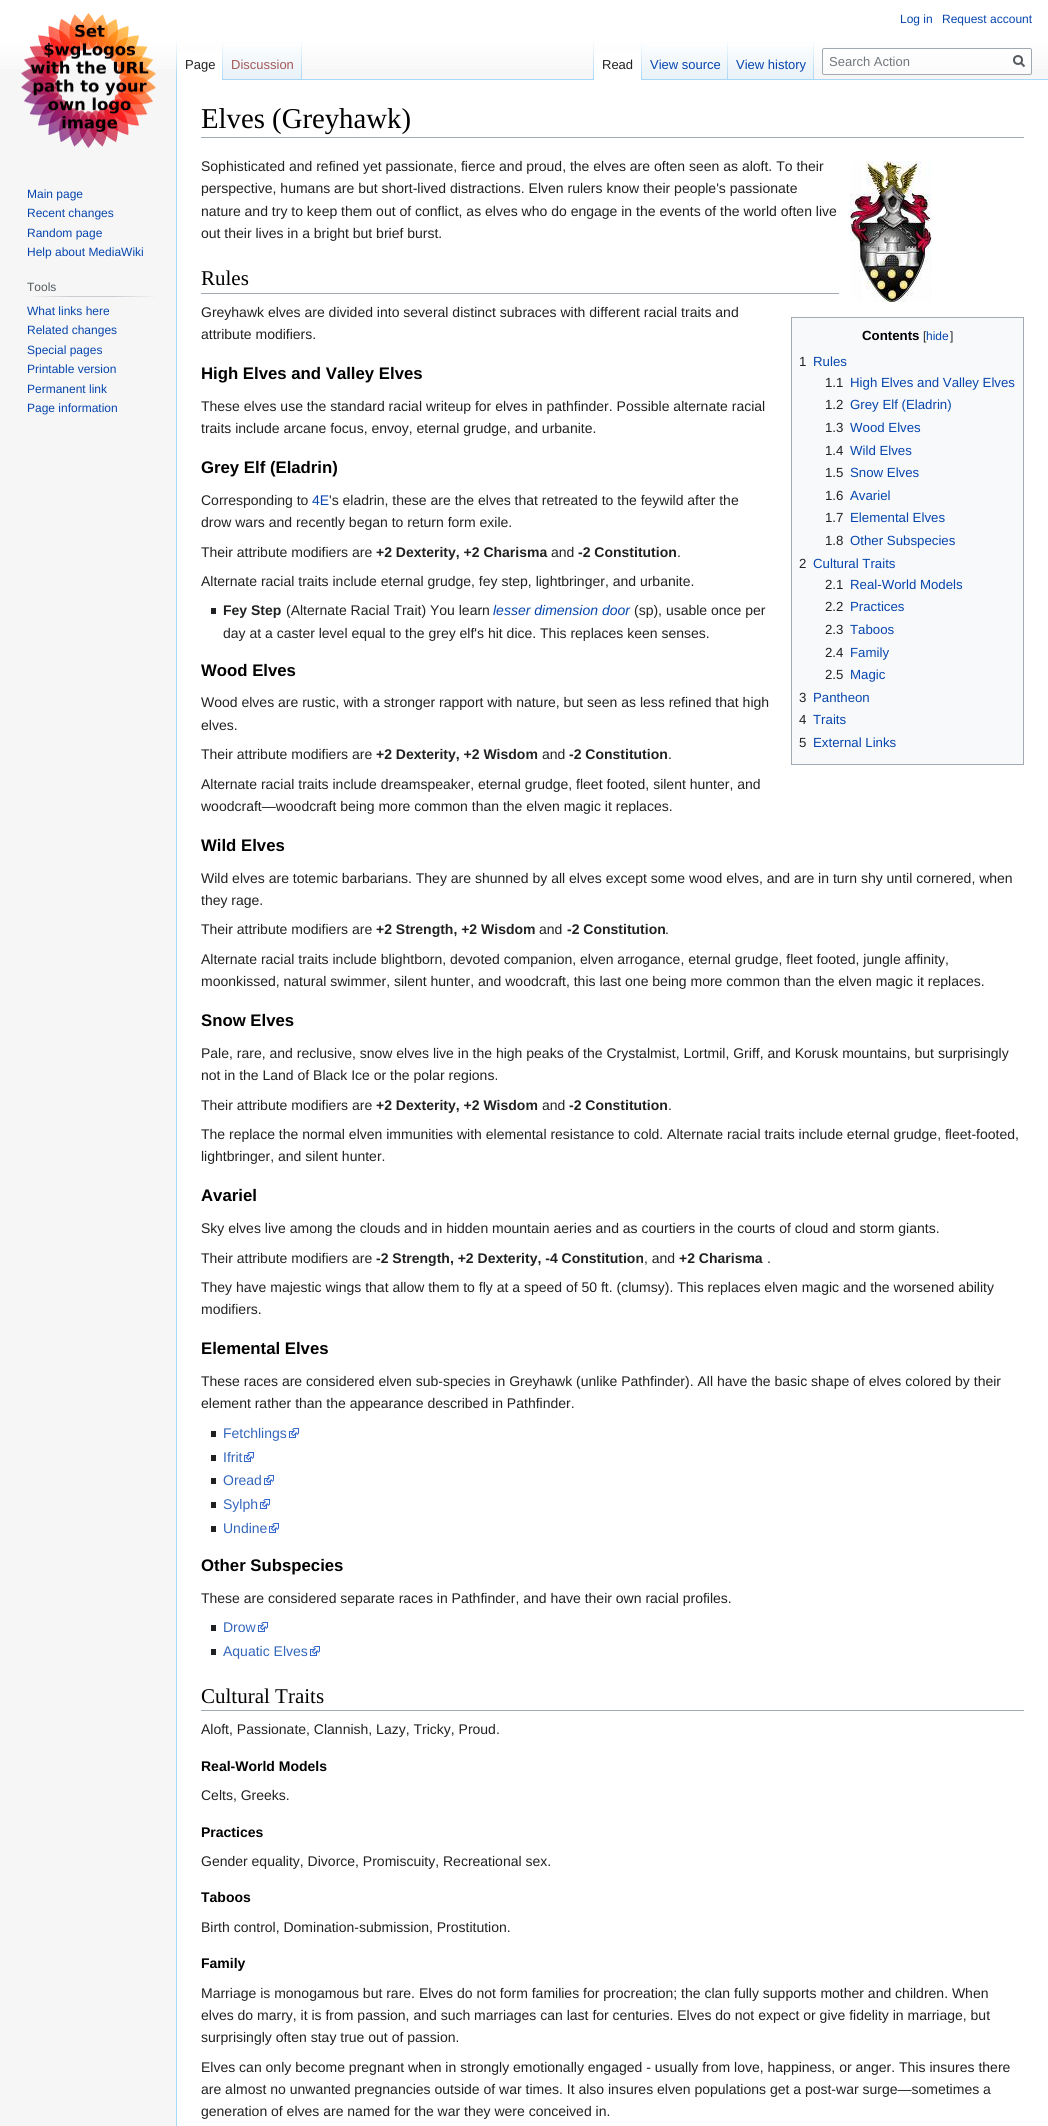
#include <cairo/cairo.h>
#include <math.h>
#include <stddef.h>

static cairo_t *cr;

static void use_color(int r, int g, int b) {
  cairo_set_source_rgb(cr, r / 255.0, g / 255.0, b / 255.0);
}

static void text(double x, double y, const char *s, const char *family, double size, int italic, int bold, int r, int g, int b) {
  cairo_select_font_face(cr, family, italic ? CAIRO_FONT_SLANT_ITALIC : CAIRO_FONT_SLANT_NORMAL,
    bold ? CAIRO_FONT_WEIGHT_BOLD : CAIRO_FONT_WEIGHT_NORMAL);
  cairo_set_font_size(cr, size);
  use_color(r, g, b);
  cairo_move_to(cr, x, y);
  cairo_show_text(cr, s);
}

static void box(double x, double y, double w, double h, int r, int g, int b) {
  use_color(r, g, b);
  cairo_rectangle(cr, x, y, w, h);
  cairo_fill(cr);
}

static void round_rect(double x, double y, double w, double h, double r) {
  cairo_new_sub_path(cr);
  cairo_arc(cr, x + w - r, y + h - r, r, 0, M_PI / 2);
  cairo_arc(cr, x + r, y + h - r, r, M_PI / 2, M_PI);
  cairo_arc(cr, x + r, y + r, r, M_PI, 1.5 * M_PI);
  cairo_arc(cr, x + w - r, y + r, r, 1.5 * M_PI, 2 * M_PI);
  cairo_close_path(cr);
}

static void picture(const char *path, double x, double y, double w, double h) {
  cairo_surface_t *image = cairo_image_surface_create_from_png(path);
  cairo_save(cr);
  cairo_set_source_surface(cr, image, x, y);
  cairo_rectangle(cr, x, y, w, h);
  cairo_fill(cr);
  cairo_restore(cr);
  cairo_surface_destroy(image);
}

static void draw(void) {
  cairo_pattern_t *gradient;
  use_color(246, 246, 246);
  cairo_paint(cr);
  gradient = cairo_pattern_create_linear(524, 0, 524, 80);
  cairo_pattern_add_color_stop_rgba(gradient, 0.5, 1, 1, 1, 1);
  cairo_pattern_add_color_stop_rgba(gradient, 1, 0.965, 0.965, 0.965, 1);
  cairo_set_source(cr, gradient);
  cairo_pattern_destroy(gradient);
  cairo_rectangle(cr, 0, 0, 1048, 69);
  cairo_fill(cr);
  box(176, 79, 1, 2047, 167, 215, 249);
  gradient = cairo_pattern_create_linear(177, 40, 177, 80);
  cairo_pattern_add_color_stop_rgba(gradient, 0, 0.655, 0.843, 0.976, 0);
  cairo_pattern_add_color_stop_rgba(gradient, 1, 0.655, 0.843, 0.976, 1);
  cairo_set_source(cr, gradient);
  cairo_pattern_destroy(gradient);
  cairo_rectangle(cr, 176, 40, 1, 40);
  cairo_fill(cr);
  box(177, 51, 45, 29, 255, 255, 255);
  gradient = cairo_pattern_create_linear(223, 40, 223, 80);
  cairo_pattern_add_color_stop_rgba(gradient, 0, 1, 1, 1, 1);
  cairo_pattern_add_color_stop_rgba(gradient, 1, 0.655, 0.843, 0.976, 1);
  cairo_set_source(cr, gradient);
  cairo_pattern_destroy(gradient);
  cairo_rectangle(cr, 222, 40, 1, 40);
  cairo_fill(cr);
  gradient = cairo_pattern_create_linear(263, 80, 263, 40);
  cairo_pattern_add_color_stop_rgba(gradient, 0, 0.467, 0.757, 0.965, 1);
  cairo_pattern_add_color_stop_rgba(gradient, 0.03, 0.91, 0.949, 0.973, 1);
  cairo_pattern_add_color_stop_rgba(gradient, 1, 1, 1, 1, 1);
  cairo_set_source(cr, gradient);
  cairo_pattern_destroy(gradient);
  cairo_rectangle(cr, 223, 46, 79, 34);
  cairo_fill(cr);
  gradient = cairo_pattern_create_linear(302, 40, 302, 80);
  cairo_pattern_add_color_stop_rgba(gradient, 0, 0.655, 0.843, 0.976, 0);
  cairo_pattern_add_color_stop_rgba(gradient, 1, 0.655, 0.843, 0.976, 1);
  cairo_set_source(cr, gradient);
  cairo_pattern_destroy(gradient);
  cairo_rectangle(cr, 301, 40, 1, 40);
  cairo_fill(cr);
  box(302, 79, 746, 1, 167, 215, 249);
  gradient = cairo_pattern_create_linear(594, 40, 594, 80);
  cairo_pattern_add_color_stop_rgba(gradient, 0, 0.655, 0.843, 0.976, 0);
  cairo_pattern_add_color_stop_rgba(gradient, 1, 0.655, 0.843, 0.976, 1);
  cairo_set_source(cr, gradient);
  cairo_pattern_destroy(gradient);
  cairo_rectangle(cr, 593, 40, 1, 40);
  cairo_fill(cr);
  box(594, 51, 47, 29, 255, 255, 255);
  gradient = cairo_pattern_create_linear(642, 40, 642, 80);
  cairo_pattern_add_color_stop_rgba(gradient, 0, 1, 1, 1, 1);
  cairo_pattern_add_color_stop_rgba(gradient, 1, 0.655, 0.843, 0.976, 1);
  cairo_set_source(cr, gradient);
  cairo_pattern_destroy(gradient);
  cairo_rectangle(cr, 641, 40, 1, 40);
  cairo_fill(cr);
  gradient = cairo_pattern_create_linear(685, 80, 685, 40);
  cairo_pattern_add_color_stop_rgba(gradient, 0, 0.467, 0.757, 0.965, 1);
  cairo_pattern_add_color_stop_rgba(gradient, 0.03, 0.91, 0.949, 0.973, 1);
  cairo_pattern_add_color_stop_rgba(gradient, 1, 1, 1, 1, 1);
  cairo_set_source(cr, gradient);
  cairo_pattern_destroy(gradient);
  cairo_rectangle(cr, 642, 46, 86, 33);
  cairo_fill(cr);
  gradient = cairo_pattern_create_linear(728, 40, 728, 80);
  cairo_pattern_add_color_stop_rgba(gradient, 0, 0.655, 0.843, 0.976, 0);
  cairo_pattern_add_color_stop_rgba(gradient, 1, 0.655, 0.843, 0.976, 1);
  cairo_set_source(cr, gradient);
  cairo_pattern_destroy(gradient);
  cairo_rectangle(cr, 727, 40, 1, 40);
  cairo_fill(cr);
  gradient = cairo_pattern_create_linear(771, 80, 771, 40);
  cairo_pattern_add_color_stop_rgba(gradient, 0, 0.467, 0.757, 0.965, 1);
  cairo_pattern_add_color_stop_rgba(gradient, 0.03, 0.91, 0.949, 0.973, 1);
  cairo_pattern_add_color_stop_rgba(gradient, 1, 1, 1, 1, 1);
  cairo_set_source(cr, gradient);
  cairo_pattern_destroy(gradient);
  cairo_rectangle(cr, 728, 46, 86, 33);
  cairo_fill(cr);
  gradient = cairo_pattern_create_linear(814, 40, 814, 80);
  cairo_pattern_add_color_stop_rgba(gradient, 0, 0.655, 0.843, 0.976, 0);
  cairo_pattern_add_color_stop_rgba(gradient, 1, 0.655, 0.843, 0.976, 1);
  cairo_set_source(cr, gradient);
  cairo_pattern_destroy(gradient);
  cairo_rectangle(cr, 813, 40, 1, 40);
  cairo_fill(cr);
  cairo_set_source_rgba(cr, 1, 1, 1, 0.5);
  round_rect(822.5, 48.5, 209, 26, 1.5);
  cairo_fill_preserve(cr);
  use_color(162, 169, 177);
  cairo_set_line_width(cr, 1);
  cairo_stroke(cr);
  cairo_new_path(cr);
  cairo_move_to(cr, 1024.5, 66.5);
  cairo_line_to(cr, 1020.5, 62.5);
  use_color(84, 89, 93);
  cairo_set_line_width(cr, 2);
  cairo_stroke(cr);
  cairo_arc(cr, 1018, 60, 4, 0, 2 * M_PI);
  cairo_stroke(cr);
  picture("img_01.png", 21, 13, 135, 135);
  gradient = cairo_pattern_create_linear(27, 297, 158, 297);
  cairo_pattern_add_color_stop_rgba(gradient, 0, 0.965, 0.965, 0.965, 1);
  cairo_pattern_add_color_stop_rgba(gradient, 0.33, 0.784, 0.8, 0.82, 1);
  cairo_pattern_add_color_stop_rgba(gradient, 0.66, 0.784, 0.8, 0.82, 1);
  cairo_pattern_add_color_stop_rgba(gradient, 1, 0.965, 0.965, 0.965, 1);
  cairo_set_source(cr, gradient);
  cairo_pattern_destroy(gradient);
  cairo_rectangle(cr, 27, 296, 131, 1);
  cairo_fill(cr);
  box(177, 80, 871, 2046, 255, 255, 255);
  box(201, 137, 823, 1, 162, 169, 177);
  picture("img_02.png", 850, 161, 82, 141);
  box(201, 293, 638, 1, 162, 169, 177);
  use_color(248, 249, 250);
  cairo_rectangle(cr, 791.5, 317.5, 232, 447);
  cairo_fill_preserve(cr);
  use_color(162, 169, 177);
  cairo_set_line_width(cr, 1);
  cairo_stroke(cr);
  box(211, 608, 5, 6, 32, 33, 34);
  box(211, 1431, 5, 6, 32, 33, 34);
  picture("img_03.png", 289, 1428, 10, 10);
  box(211, 1455, 5, 6, 32, 33, 34);
  picture("img_03.png", 244, 1452, 10, 10);
  box(211, 1478, 5, 6, 32, 33, 34);
  picture("img_03.png", 264, 1475, 10, 10);
  box(211, 1502, 5, 6, 32, 33, 34);
  picture("img_03.png", 260, 1499, 10, 10);
  box(211, 1526, 5, 6, 32, 33, 34);
  picture("img_03.png", 269, 1523, 10, 10);
  box(211, 1625, 5, 6, 32, 33, 34);
  picture("img_03.png", 258, 1622, 10, 10);
  box(211, 1649, 5, 6, 32, 33, 34);
  picture("img_03.png", 310, 1646, 10, 10);
  box(201, 1710, 823, 1, 162, 169, 177);
  text(900, 23, "Log in", "Liberation Sans", 12, 0, 0, 6, 69, 173);
  text(942, 23, "Request account", "Liberation Sans", 12, 0, 0, 6, 69, 173);
  text(185, 69, "Page", "Liberation Sans", 13, 0, 0, 32, 33, 34);
  text(231, 69, "Discussion", "Liberation Sans", 13, 0, 0, 165, 88, 88);
  text(602, 69, "Read", "Liberation Sans", 13, 0, 0, 32, 33, 34);
  text(650, 69, "View source", "Liberation Sans", 13, 0, 0, 6, 69, 173);
  text(736, 69, "View history", "Liberation Sans", 13, 0, 0, 6, 69, 173);
  text(829, 66, "Search Action", "Liberation Sans", 13, 0, 0, 114, 119, 125);
  text(27, 198, "Main page", "Liberation Sans", 12, 0, 0, 6, 69, 173);
  text(27, 217, "Recent changes", "Liberation Sans", 12, 0, 0, 6, 69, 173);
  text(27, 237, "Random page", "Liberation Sans", 12, 0, 0, 6, 69, 173);
  text(27, 256, "Help about MediaWiki", "Liberation Sans", 12, 0, 0, 6, 69, 173);
  text(27, 291, "Tools", "Liberation Sans", 12, 0, 0, 84, 89, 93);
  text(27, 315, "What links here", "Liberation Sans", 12, 0, 0, 6, 69, 173);
  text(27, 334, "Related changes", "Liberation Sans", 12, 0, 0, 6, 69, 173);
  text(27, 354, "Special pages", "Liberation Sans", 12, 0, 0, 6, 69, 173);
  text(27, 373, "Printable version", "Liberation Sans", 12, 0, 0, 6, 69, 173);
  text(27, 393, "Permanent link", "Liberation Sans", 12, 0, 0, 6, 69, 173);
  text(27, 412, "Page information", "Liberation Sans", 12, 0, 0, 6, 69, 173);
  text(201, 128, "Elves (Greyhawk)", "Liberation Serif", 28.75, 0, 0, 0, 0, 0);
  text(201, 171, "Sophisticated and refined yet passionate, fierce and proud, the elves are often seen as aloft. To their", "Liberation Sans", 14, 0, 0, 32, 33, 34);
  text(201, 193, "perspective, humans are but short-lived distractions. Elven rulers know their people's passionate", "Liberation Sans", 14, 0, 0, 32, 33, 34);
  text(201, 216, "nature and try to keep them out of conflict, as elves who do engage in the events of the world often live", "Liberation Sans", 14, 0, 0, 32, 33, 34);
  text(201, 238, "out their lives in a bright but brief burst.", "Liberation Sans", 14, 0, 0, 32, 33, 34);
  text(201, 285, "Rules", "Liberation Serif", 21, 0, 0, 0, 0, 0);
  text(201, 317, "Greyhawk elves are divided into several distinct subraces with different racial traits and", "Liberation Sans", 14, 0, 0, 32, 33, 34);
  text(201, 339, "attribute modifiers.", "Liberation Sans", 14, 0, 0, 32, 33, 34);
  text(201, 379, "High Elves and Valley Elves", "Liberation Sans", 16.75, 0, 1, 0, 0, 0);
  text(862, 340, "Contents", "Liberation Sans", 13.25, 0, 1, 0, 0, 0);
  text(923, 340, "[", "Liberation Sans", 12, 0, 0, 32, 33, 34);
  text(926, 340, "hide", "Liberation Sans", 12, 0, 0, 6, 69, 173);
  text(950, 340, "]", "Liberation Sans", 12, 0, 0, 32, 33, 34);
  text(799, 366, "1", "Liberation Sans", 13.25, 0, 0, 32, 33, 34);
  text(813, 366, "Rules", "Liberation Sans", 13.25, 0, 0, 6, 69, 173);
  text(825, 387, "1.1", "Liberation Sans", 13.25, 0, 0, 32, 33, 34);
  text(850, 387, "High Elves and Valley Elves", "Liberation Sans", 13.25, 0, 0, 6, 69, 173);
  text(825, 409, "1.2", "Liberation Sans", 13.25, 0, 0, 32, 33, 34);
  text(850, 409, "Grey Elf (Eladrin)", "Liberation Sans", 13.25, 0, 0, 6, 69, 173);
  text(825, 432, "1.3", "Liberation Sans", 13.25, 0, 0, 32, 33, 34);
  text(850, 432, "Wood Elves", "Liberation Sans", 13.25, 0, 0, 6, 69, 173);
  text(825, 455, "1.4", "Liberation Sans", 13.25, 0, 0, 32, 33, 34);
  text(850, 455, "Wild Elves", "Liberation Sans", 13.25, 0, 0, 6, 69, 173);
  text(825, 477, "1.5", "Liberation Sans", 13.25, 0, 0, 32, 33, 34);
  text(850, 477, "Snow Elves", "Liberation Sans", 13.25, 0, 0, 6, 69, 173);
  text(825, 500, "1.6", "Liberation Sans", 13.25, 0, 0, 32, 33, 34);
  text(850, 500, "Avariel", "Liberation Sans", 13.25, 0, 0, 6, 69, 173);
  text(825, 522, "1.7", "Liberation Sans", 13.25, 0, 0, 32, 33, 34);
  text(850, 522, "Elemental Elves", "Liberation Sans", 13.25, 0, 0, 6, 69, 173);
  text(825, 545, "1.8", "Liberation Sans", 13.25, 0, 0, 32, 33, 34);
  text(850, 545, "Other Subspecies", "Liberation Sans", 13.25, 0, 0, 6, 69, 173);
  text(799, 568, "2", "Liberation Sans", 13.25, 0, 0, 32, 33, 34);
  text(813, 568, "Cultural Traits", "Liberation Sans", 13.25, 0, 0, 6, 69, 173);
  text(825, 589, "2.1", "Liberation Sans", 13.25, 0, 0, 32, 33, 34);
  text(850, 589, "Real-World Models", "Liberation Sans", 13.25, 0, 0, 6, 69, 173);
  text(825, 611, "2.2", "Liberation Sans", 13.25, 0, 0, 32, 33, 34);
  text(850, 611, "Practices", "Liberation Sans", 13.25, 0, 0, 6, 69, 173);
  text(825, 634, "2.3", "Liberation Sans", 13.25, 0, 0, 32, 33, 34);
  text(850, 634, "Taboos", "Liberation Sans", 13.25, 0, 0, 6, 69, 173);
  text(825, 657, "2.4", "Liberation Sans", 13.25, 0, 0, 32, 33, 34);
  text(850, 657, "Family", "Liberation Sans", 13.25, 0, 0, 6, 69, 173);
  text(825, 679, "2.5", "Liberation Sans", 13.25, 0, 0, 32, 33, 34);
  text(850, 679, "Magic", "Liberation Sans", 13.25, 0, 0, 6, 69, 173);
  text(799, 702, "3", "Liberation Sans", 13.25, 0, 0, 32, 33, 34);
  text(813, 702, "Pantheon", "Liberation Sans", 13.25, 0, 0, 6, 69, 173);
  text(799, 724, "4", "Liberation Sans", 13.25, 0, 0, 32, 33, 34);
  text(813, 724, "Traits", "Liberation Sans", 13.25, 0, 0, 6, 69, 173);
  text(799, 747, "5", "Liberation Sans", 13.25, 0, 0, 32, 33, 34);
  text(813, 747, "External Links", "Liberation Sans", 13.25, 0, 0, 6, 69, 173);
  text(201, 411, "These elves use the standard racial writeup for elves in pathfinder. Possible alternate racial", "Liberation Sans", 14, 0, 0, 32, 33, 34);
  text(201, 433, "traits include arcane focus, envoy, eternal grudge, and urbanite.", "Liberation Sans", 14, 0, 0, 32, 33, 34);
  text(201, 473, "Grey Elf (Eladrin)", "Liberation Sans", 16.75, 0, 1, 0, 0, 0);
  text(201, 505, "Corresponding to", "Liberation Sans", 14, 0, 0, 32, 33, 34);
  text(312, 505, "4E", "Liberation Sans", 14, 0, 0, 6, 69, 173);
  text(329, 505, "'s eladrin, these are the elves that retreated to the feywild after the", "Liberation Sans", 14, 0, 0, 32, 33, 34);
  text(201, 527, "drow wars and recently began to return form exile.", "Liberation Sans", 14, 0, 0, 32, 33, 34);
  text(201, 557, "Their attribute modifiers are", "Liberation Sans", 14, 0, 0, 32, 33, 34);
  text(376, 557, "+2 Dexterity, +2 Charisma", "Liberation Sans", 14, 0, 1, 32, 33, 34);
  text(551, 557, "and", "Liberation Sans", 14, 0, 0, 32, 33, 34);
  text(578, 557, "-2 Constitution", "Liberation Sans", 14, 0, 1, 32, 33, 34);
  text(677, 557, ".", "Liberation Sans", 14, 0, 0, 32, 33, 34);
  text(201, 586, "Alternate racial traits include eternal grudge, fey step, lightbringer, and urbanite.", "Liberation Sans", 14, 0, 0, 32, 33, 34);
  text(223, 615, "Fey Step", "Liberation Sans", 14, 0, 1, 32, 33, 34);
  text(286, 615, "(Alternate Racial Trait) You learn", "Liberation Sans", 14, 0, 0, 32, 33, 34);
  text(493, 615, "lesser dimension door", "Liberation Sans", 14, 1, 0, 6, 69, 173);
  text(634, 615, "(sp), usable once per", "Liberation Sans", 14, 0, 0, 32, 33, 34);
  text(223, 638, "day at a caster level equal to the grey elf's hit dice. This replaces keen senses.", "Liberation Sans", 14, 0, 0, 32, 33, 34);
  text(201, 676, "Wood Elves", "Liberation Sans", 16.75, 0, 1, 0, 0, 0);
  text(201, 707, "Wood elves are rustic, with a stronger rapport with nature, but seen as less refined that high", "Liberation Sans", 14, 0, 0, 32, 33, 34);
  text(201, 730, "elves.", "Liberation Sans", 14, 0, 0, 32, 33, 34);
  text(201, 759, "Their attribute modifiers are", "Liberation Sans", 14, 0, 0, 32, 33, 34);
  text(376, 759, "+2 Dexterity, +2 Wisdom", "Liberation Sans", 14, 0, 1, 32, 33, 34);
  text(542, 759, "and", "Liberation Sans", 14, 0, 0, 32, 33, 34);
  text(569, 759, "-2 Constitution", "Liberation Sans", 14, 0, 1, 32, 33, 34);
  text(668, 759, ".", "Liberation Sans", 14, 0, 0, 32, 33, 34);
  text(201, 789, "Alternate racial traits include dreamspeaker, eternal grudge, fleet footed, silent hunter, and", "Liberation Sans", 14, 0, 0, 32, 33, 34);
  text(201, 811, "woodcraft—woodcraft being more common than the elven magic it replaces.", "Liberation Sans", 14, 0, 0, 32, 33, 34);
  text(201, 851, "Wild Elves", "Liberation Sans", 16.75, 0, 1, 0, 0, 0);
  text(201, 883, "Wild elves are totemic barbarians. They are shunned by all elves except some wood elves, and are in turn shy until cornered, when", "Liberation Sans", 14, 0, 0, 32, 33, 34);
  text(201, 905, "they rage.", "Liberation Sans", 14, 0, 0, 32, 33, 34);
  text(201, 934, "Their attribute modifiers are", "Liberation Sans", 14, 0, 0, 32, 33, 34);
  text(376, 934, "+2 Strength, +2 Wisdom", "Liberation Sans", 14, 0, 1, 32, 33, 34);
  text(539, 934, "and", "Liberation Sans", 14, 0, 0, 32, 33, 34);
  text(567, 934, "-2 Constitution", "Liberation Sans", 14, 0, 1, 32, 33, 34);
  text(665, 934, ".", "Liberation Sans", 14, 0, 0, 32, 33, 34);
  text(201, 964, "Alternate racial traits include blightborn, devoted companion, elven arrogance, eternal grudge, fleet footed, jungle affinity,", "Liberation Sans", 14, 0, 0, 32, 33, 34);
  text(201, 986, "moonkissed, natural swimmer, silent hunter, and woodcraft, this last one being more common than the elven magic it replaces.", "Liberation Sans", 14, 0, 0, 32, 33, 34);
  text(201, 1026, "Snow Elves", "Liberation Sans", 16.75, 0, 1, 0, 0, 0);
  text(201, 1058, "Pale, rare, and reclusive, snow elves live in the high peaks of the Crystalmist, Lortmil, Griff, and Korusk mountains, but surprisingly", "Liberation Sans", 14, 0, 0, 32, 33, 34);
  text(201, 1080, "not in the Land of Black Ice or the polar regions.", "Liberation Sans", 14, 0, 0, 32, 33, 34);
  text(201, 1110, "Their attribute modifiers are", "Liberation Sans", 14, 0, 0, 32, 33, 34);
  text(376, 1110, "+2 Dexterity, +2 Wisdom", "Liberation Sans", 14, 0, 1, 32, 33, 34);
  text(542, 1110, "and", "Liberation Sans", 14, 0, 0, 32, 33, 34);
  text(569, 1110, "-2 Constitution", "Liberation Sans", 14, 0, 1, 32, 33, 34);
  text(668, 1110, ".", "Liberation Sans", 14, 0, 0, 32, 33, 34);
  text(201, 1139, "The replace the normal elven immunities with elemental resistance to cold. Alternate racial traits include eternal grudge, fleet-footed,", "Liberation Sans", 14, 0, 0, 32, 33, 34);
  text(201, 1161, "lightbringer, and silent hunter.", "Liberation Sans", 14, 0, 0, 32, 33, 34);
  text(201, 1201, "Avariel", "Liberation Sans", 16.75, 0, 1, 0, 0, 0);
  text(201, 1233, "Sky elves live among the clouds and in hidden mountain aeries and as courtiers in the courts of cloud and storm giants.", "Liberation Sans", 14, 0, 0, 32, 33, 34);
  text(201, 1263, "Their attribute modifiers are", "Liberation Sans", 14, 0, 0, 32, 33, 34);
  text(376, 1263, "-2 Strength, +2 Dexterity, -4 Constitution", "Liberation Sans", 14, 0, 1, 32, 33, 34);
  text(644, 1263, ", and", "Liberation Sans", 14, 0, 0, 32, 33, 34);
  text(679, 1263, "+2 Charisma", "Liberation Sans", 14, 0, 1, 32, 33, 34);
  text(767, 1263, ".", "Liberation Sans", 14, 0, 0, 32, 33, 34);
  text(201, 1292, "They have majestic wings that allow them to fly at a speed of 50 ft. (clumsy). This replaces elven magic and the worsened ability", "Liberation Sans", 14, 0, 0, 32, 33, 34);
  text(201, 1314, "modifiers.", "Liberation Sans", 14, 0, 0, 32, 33, 34);
  text(201, 1354, "Elemental Elves", "Liberation Sans", 16.75, 0, 1, 0, 0, 0);
  text(201, 1386, "These races are considered elven sub-species in Greyhawk (unlike Pathfinder). All have the basic shape of elves colored by their", "Liberation Sans", 14, 0, 0, 32, 33, 34);
  text(201, 1408, "element rather than the appearance described in Pathfinder.", "Liberation Sans", 14, 0, 0, 32, 33, 34);
  text(223, 1438, "Fetchlings", "Liberation Sans", 14, 0, 0, 51, 102, 187);
  text(223, 1462, "Ifrit", "Liberation Sans", 14, 0, 0, 51, 102, 187);
  text(223, 1485, "Oread", "Liberation Sans", 14, 0, 0, 51, 102, 187);
  text(223, 1509, "Sylph", "Liberation Sans", 14, 0, 0, 51, 102, 187);
  text(223, 1533, "Undine", "Liberation Sans", 14, 0, 0, 51, 102, 187);
  text(201, 1571, "Other Subspecies", "Liberation Sans", 16.75, 0, 1, 0, 0, 0);
  text(201, 1603, "These are considered separate races in Pathfinder, and have their own racial profiles.", "Liberation Sans", 14, 0, 0, 32, 33, 34);
  text(223, 1632, "Drow", "Liberation Sans", 14, 0, 0, 51, 102, 187);
  text(223, 1656, "Aquatic Elves", "Liberation Sans", 14, 0, 0, 51, 102, 187);
  text(201, 1703, "Cultural Traits", "Liberation Serif", 21, 0, 0, 0, 0, 0);
  text(201, 1734, "Aloft, Passionate, Clannish, Lazy, Tricky, Proud.", "Liberation Sans", 14, 0, 0, 32, 33, 34);
  text(201, 1771, "Real-World Models", "Liberation Sans", 14, 0, 1, 0, 0, 0);
  text(201, 1800, "Celts, Greeks.", "Liberation Sans", 14, 0, 0, 32, 33, 34);
  text(201, 1837, "Practices", "Liberation Sans", 14, 0, 1, 0, 0, 0);
  text(201, 1866, "Gender equality, Divorce, Promiscuity, Recreational sex.", "Liberation Sans", 14, 0, 0, 32, 33, 34);
  text(201, 1902, "Taboos", "Liberation Sans", 14, 0, 1, 0, 0, 0);
  text(201, 1932, "Birth control, Domination-submission, Prostitution.", "Liberation Sans", 14, 0, 0, 32, 33, 34);
  text(201, 1968, "Family", "Liberation Sans", 14, 0, 1, 0, 0, 0);
  text(201, 1998, "Marriage is monogamous but rare. Elves do not form families for procreation; the clan fully supports mother and children. When", "Liberation Sans", 14, 0, 0, 32, 33, 34);
  text(201, 2020, "elves do marry, it is from passion, and such marriages can last for centuries. Elves do not expect or give fidelity in marriage, but", "Liberation Sans", 14, 0, 0, 32, 33, 34);
  text(201, 2042, "surprisingly often stay true out of passion.", "Liberation Sans", 14, 0, 0, 32, 33, 34);
  text(201, 2072, "Elves can only become pregnant when in strongly emotionally engaged - usually from love, happiness, or anger. This insures there", "Liberation Sans", 14, 0, 0, 32, 33, 34);
  text(201, 2094, "are almost no unwanted pregnancies outside of war times. It also insures elven populations get a post-war surge—sometimes a", "Liberation Sans", 14, 0, 0, 32, 33, 34);
  text(201, 2116, "generation of elves are named for the war they were conceived in.", "Liberation Sans", 14, 0, 0, 32, 33, 34);
}

int main(void) {
  cairo_surface_t *surface = cairo_image_surface_create(CAIRO_FORMAT_RGB24, 1048, 2126);
  cr = cairo_create(surface);
  cairo_font_options_t *options = cairo_font_options_create();
  cairo_font_options_set_hint_metrics(options, CAIRO_HINT_METRICS_OFF);
  cairo_font_options_set_hint_style(options, CAIRO_HINT_STYLE_NONE);
  cairo_set_font_options(cr, options);
  cairo_set_miter_limit(cr, 4);
  draw();
  cairo_surface_write_to_png(surface, "out.png");
  cairo_font_options_destroy(options);
  cairo_destroy(cr);
  cairo_surface_destroy(surface);
  return 0;
}
